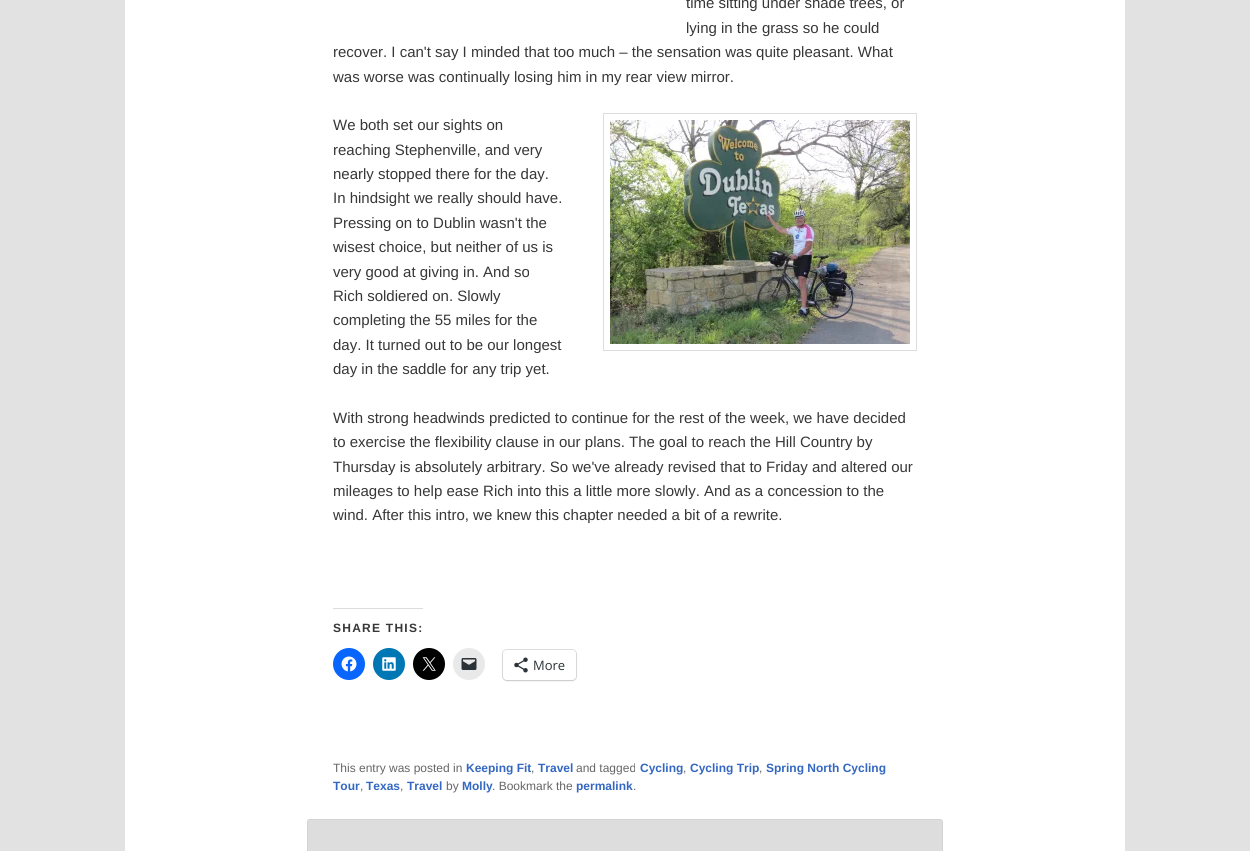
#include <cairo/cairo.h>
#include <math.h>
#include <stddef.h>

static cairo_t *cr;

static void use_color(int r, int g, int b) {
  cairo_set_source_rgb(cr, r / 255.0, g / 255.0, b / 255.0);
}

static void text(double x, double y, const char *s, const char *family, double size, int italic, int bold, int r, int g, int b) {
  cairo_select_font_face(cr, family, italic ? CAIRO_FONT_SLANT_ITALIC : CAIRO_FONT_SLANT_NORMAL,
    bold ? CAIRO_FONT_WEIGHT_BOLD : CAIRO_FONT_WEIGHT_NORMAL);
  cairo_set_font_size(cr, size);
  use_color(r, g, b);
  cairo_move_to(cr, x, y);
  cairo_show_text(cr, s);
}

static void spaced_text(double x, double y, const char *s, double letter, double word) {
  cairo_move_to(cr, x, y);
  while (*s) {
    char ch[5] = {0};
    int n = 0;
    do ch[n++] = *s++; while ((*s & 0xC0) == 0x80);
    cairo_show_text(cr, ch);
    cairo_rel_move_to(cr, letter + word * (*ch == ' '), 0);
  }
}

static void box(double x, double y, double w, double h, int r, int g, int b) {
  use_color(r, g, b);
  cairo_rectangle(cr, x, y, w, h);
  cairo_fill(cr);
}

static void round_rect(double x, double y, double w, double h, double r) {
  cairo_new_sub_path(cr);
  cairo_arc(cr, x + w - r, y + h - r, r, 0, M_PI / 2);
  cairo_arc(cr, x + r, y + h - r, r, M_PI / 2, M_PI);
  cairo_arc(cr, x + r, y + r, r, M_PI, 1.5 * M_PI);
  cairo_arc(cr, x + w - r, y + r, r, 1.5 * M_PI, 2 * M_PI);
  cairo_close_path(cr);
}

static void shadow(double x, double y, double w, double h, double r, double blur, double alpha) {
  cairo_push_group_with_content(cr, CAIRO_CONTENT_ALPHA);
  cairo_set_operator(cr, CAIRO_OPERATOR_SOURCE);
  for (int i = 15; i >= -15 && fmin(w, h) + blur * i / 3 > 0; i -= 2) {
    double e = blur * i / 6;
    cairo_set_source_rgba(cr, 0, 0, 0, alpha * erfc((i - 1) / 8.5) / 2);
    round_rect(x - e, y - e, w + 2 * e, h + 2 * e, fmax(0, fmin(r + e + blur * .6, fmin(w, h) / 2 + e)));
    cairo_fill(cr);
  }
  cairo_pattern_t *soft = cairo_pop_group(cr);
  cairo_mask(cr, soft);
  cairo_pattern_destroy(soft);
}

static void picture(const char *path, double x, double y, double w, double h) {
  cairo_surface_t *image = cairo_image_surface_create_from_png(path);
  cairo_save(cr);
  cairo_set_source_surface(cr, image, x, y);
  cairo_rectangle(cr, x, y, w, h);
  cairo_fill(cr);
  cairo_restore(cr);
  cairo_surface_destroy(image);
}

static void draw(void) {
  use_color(226, 226, 226);
  cairo_paint(cr);
  box(125, 0, 1000, 851, 255, 255, 255);
  cairo_rectangle(cr, 603.5, 113.5, 313, 237);
  use_color(221, 221, 221);
  cairo_set_line_width(cr, 1);
  cairo_stroke(cr);
  picture("img_01.png", 610, 120, 300, 224);
  box(333, 608, 90, 1, 220, 220, 222);
  use_color(8, 102, 255);
  cairo_arc(cr, 349, 664, 16, 0, 2 * M_PI);
  cairo_fill(cr);
  picture("img_02.png", 341, 656, 16, 16);
  use_color(0, 119, 181);
  cairo_arc(cr, 389, 664, 16, 0, 2 * M_PI);
  cairo_fill(cr);
  picture("img_03.png", 382, 657, 14, 14);
  use_color(0, 0, 0);
  cairo_arc(cr, 429, 664, 16, 0, 2 * M_PI);
  cairo_fill(cr);
  picture("img_04.png", 422, 657, 14, 14);
  use_color(233, 233, 233);
  cairo_arc(cr, 469, 664, 16, 0, 2 * M_PI);
  cairo_fill(cr);
  picture("img_05.png", 461, 658, 16, 12);
  round_rect(502.5, 649.5, 74, 31, 4.5);
  use_color(224, 224, 224);
  cairo_stroke(cr);
  use_color(0, 0, 0);
  shadow(503, 651, 73, 30, 4, 1, 0.12);
  use_color(255, 255, 255);
  round_rect(503, 650, 73, 30, 4);
  cairo_fill(cr);
  picture("img_06.png", 514, 657, 14, 16);
  use_color(221, 221, 221);
  round_rect(307.5, 819.5, 635, 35, 2.5);
  cairo_fill_preserve(cr);
  use_color(211, 211, 211);
  cairo_stroke(cr);
  text(686, 8, "time sitting under shade trees, or", "Liberation Sans", 15, 0, 0, 55, 55, 55);
  text(686, 33, "lying in the grass so he could", "Liberation Sans", 15, 0, 0, 55, 55, 55);
  text(333, 57, "recover. I can't say I minded that too much – the sensation was quite pleasant. What", "Liberation Sans", 15, 0, 0, 55, 55, 55);
  text(333, 82, "was worse was continually losing him in my rear view mirror.", "Liberation Sans", 15, 0, 0, 55, 55, 55);
  text(333, 130, "We both set our sights on", "Liberation Sans", 15, 0, 0, 55, 55, 55);
  text(333, 155, "reaching Stephenville, and very", "Liberation Sans", 15, 0, 0, 55, 55, 55);
  text(333, 179, "nearly stopped there for the day.", "Liberation Sans", 15, 0, 0, 55, 55, 55);
  text(333, 203, "In hindsight we really should have.", "Liberation Sans", 15, 0, 0, 55, 55, 55);
  text(333, 228, "Pressing on to Dublin wasn't the", "Liberation Sans", 15, 0, 0, 55, 55, 55);
  text(333, 252, "wisest choice, but neither of us is", "Liberation Sans", 15, 0, 0, 55, 55, 55);
  text(333, 277, "very good at giving in. And so", "Liberation Sans", 15, 0, 0, 55, 55, 55);
  text(333, 301, "Rich soldiered on. Slowly", "Liberation Sans", 15, 0, 0, 55, 55, 55);
  text(333, 325, "completing the 55 miles for the", "Liberation Sans", 15, 0, 0, 55, 55, 55);
  text(333, 350, "day. It turned out to be our longest", "Liberation Sans", 15, 0, 0, 55, 55, 55);
  text(333, 374, "day in the saddle for any trip yet.", "Liberation Sans", 15, 0, 0, 55, 55, 55);
  text(333, 423, "With strong headwinds predicted to continue for the rest of the week, we have decided", "Liberation Sans", 15, 0, 0, 55, 55, 55);
  text(333, 447, "to exercise the flexibility clause in our plans. The goal to reach the Hill Country by", "Liberation Sans", 15, 0, 0, 55, 55, 55);
  text(333, 472, "Thursday is absolutely arbitrary. So we've already revised that to Friday and altered our", "Liberation Sans", 15, 0, 0, 55, 55, 55);
  text(333, 496, "mileages to help ease Rich into this a little more slowly. And as a concession to the", "Liberation Sans", 15, 0, 0, 55, 55, 55);
  text(333, 520, "wind. After this intro, we knew this chapter needed a bit of a rewrite.", "Liberation Sans", 15, 0, 0, 55, 55, 55);
  cairo_select_font_face(cr, "Liberation Sans", CAIRO_FONT_SLANT_NORMAL, CAIRO_FONT_WEIGHT_BOLD);
  cairo_set_font_size(cr, 12);
  spaced_text(333, 632, "SHARE THIS:", 1.25, 0);
  text(533, 670, "More", "Open Sans", 13, 0, 0, 44, 51, 56);
  text(333, 772, "This entry was posted in", "Liberation Sans", 12, 0, 0, 102, 102, 102);
  text(466, 772, "Keeping Fit", "Liberation Sans", 12, 0, 1, 51, 103, 193);
  text(531, 772, ",", "Liberation Sans", 12, 0, 0, 102, 102, 102);
  text(538, 772, "Travel", "Liberation Sans", 12, 0, 1, 51, 103, 193);
  text(576, 772, "and tagged", "Liberation Sans", 12, 0, 0, 102, 102, 102);
  text(640, 772, "Cycling", "Liberation Sans", 12, 0, 1, 51, 103, 193);
  text(683, 772, ",", "Liberation Sans", 12, 0, 0, 102, 102, 102);
  text(690, 772, "Cycling Trip", "Liberation Sans", 12, 0, 1, 51, 103, 193);
  text(759, 772, ",", "Liberation Sans", 12, 0, 0, 102, 102, 102);
  text(766, 772, "Spring North Cycling", "Liberation Sans", 12, 0, 1, 51, 103, 193);
  text(333, 790, "Tour", "Liberation Sans", 12, 0, 1, 51, 103, 193);
  text(360, 790, ",", "Liberation Sans", 12, 0, 0, 102, 102, 102);
  text(366, 790, "Texas", "Liberation Sans", 12, 0, 1, 51, 103, 193);
  text(400, 790, ",", "Liberation Sans", 12, 0, 0, 102, 102, 102);
  text(407, 790, "Travel", "Liberation Sans", 12, 0, 1, 51, 103, 193);
  text(446, 790, "by", "Liberation Sans", 12, 0, 0, 102, 102, 102);
  text(462, 790, "Molly", "Liberation Sans", 12, 0, 1, 51, 103, 193);
  text(492, 790, ". Bookmark the", "Liberation Sans", 12, 0, 0, 102, 102, 102);
  text(576, 790, "permalink", "Liberation Sans", 12, 0, 1, 51, 103, 193);
  text(633, 790, ".", "Liberation Sans", 12, 0, 0, 102, 102, 102);
}

int main(void) {
  cairo_surface_t *surface = cairo_image_surface_create(CAIRO_FORMAT_RGB24, 1250, 851);
  cr = cairo_create(surface);
  cairo_font_options_t *options = cairo_font_options_create();
  cairo_font_options_set_hint_metrics(options, CAIRO_HINT_METRICS_OFF);
  cairo_font_options_set_hint_style(options, CAIRO_HINT_STYLE_NONE);
  cairo_set_font_options(cr, options);
  cairo_set_miter_limit(cr, 4);
  draw();
  cairo_surface_write_to_png(surface, "out.png");
  cairo_font_options_destroy(options);
  cairo_destroy(cr);
  cairo_surface_destroy(surface);
  return 0;
}
